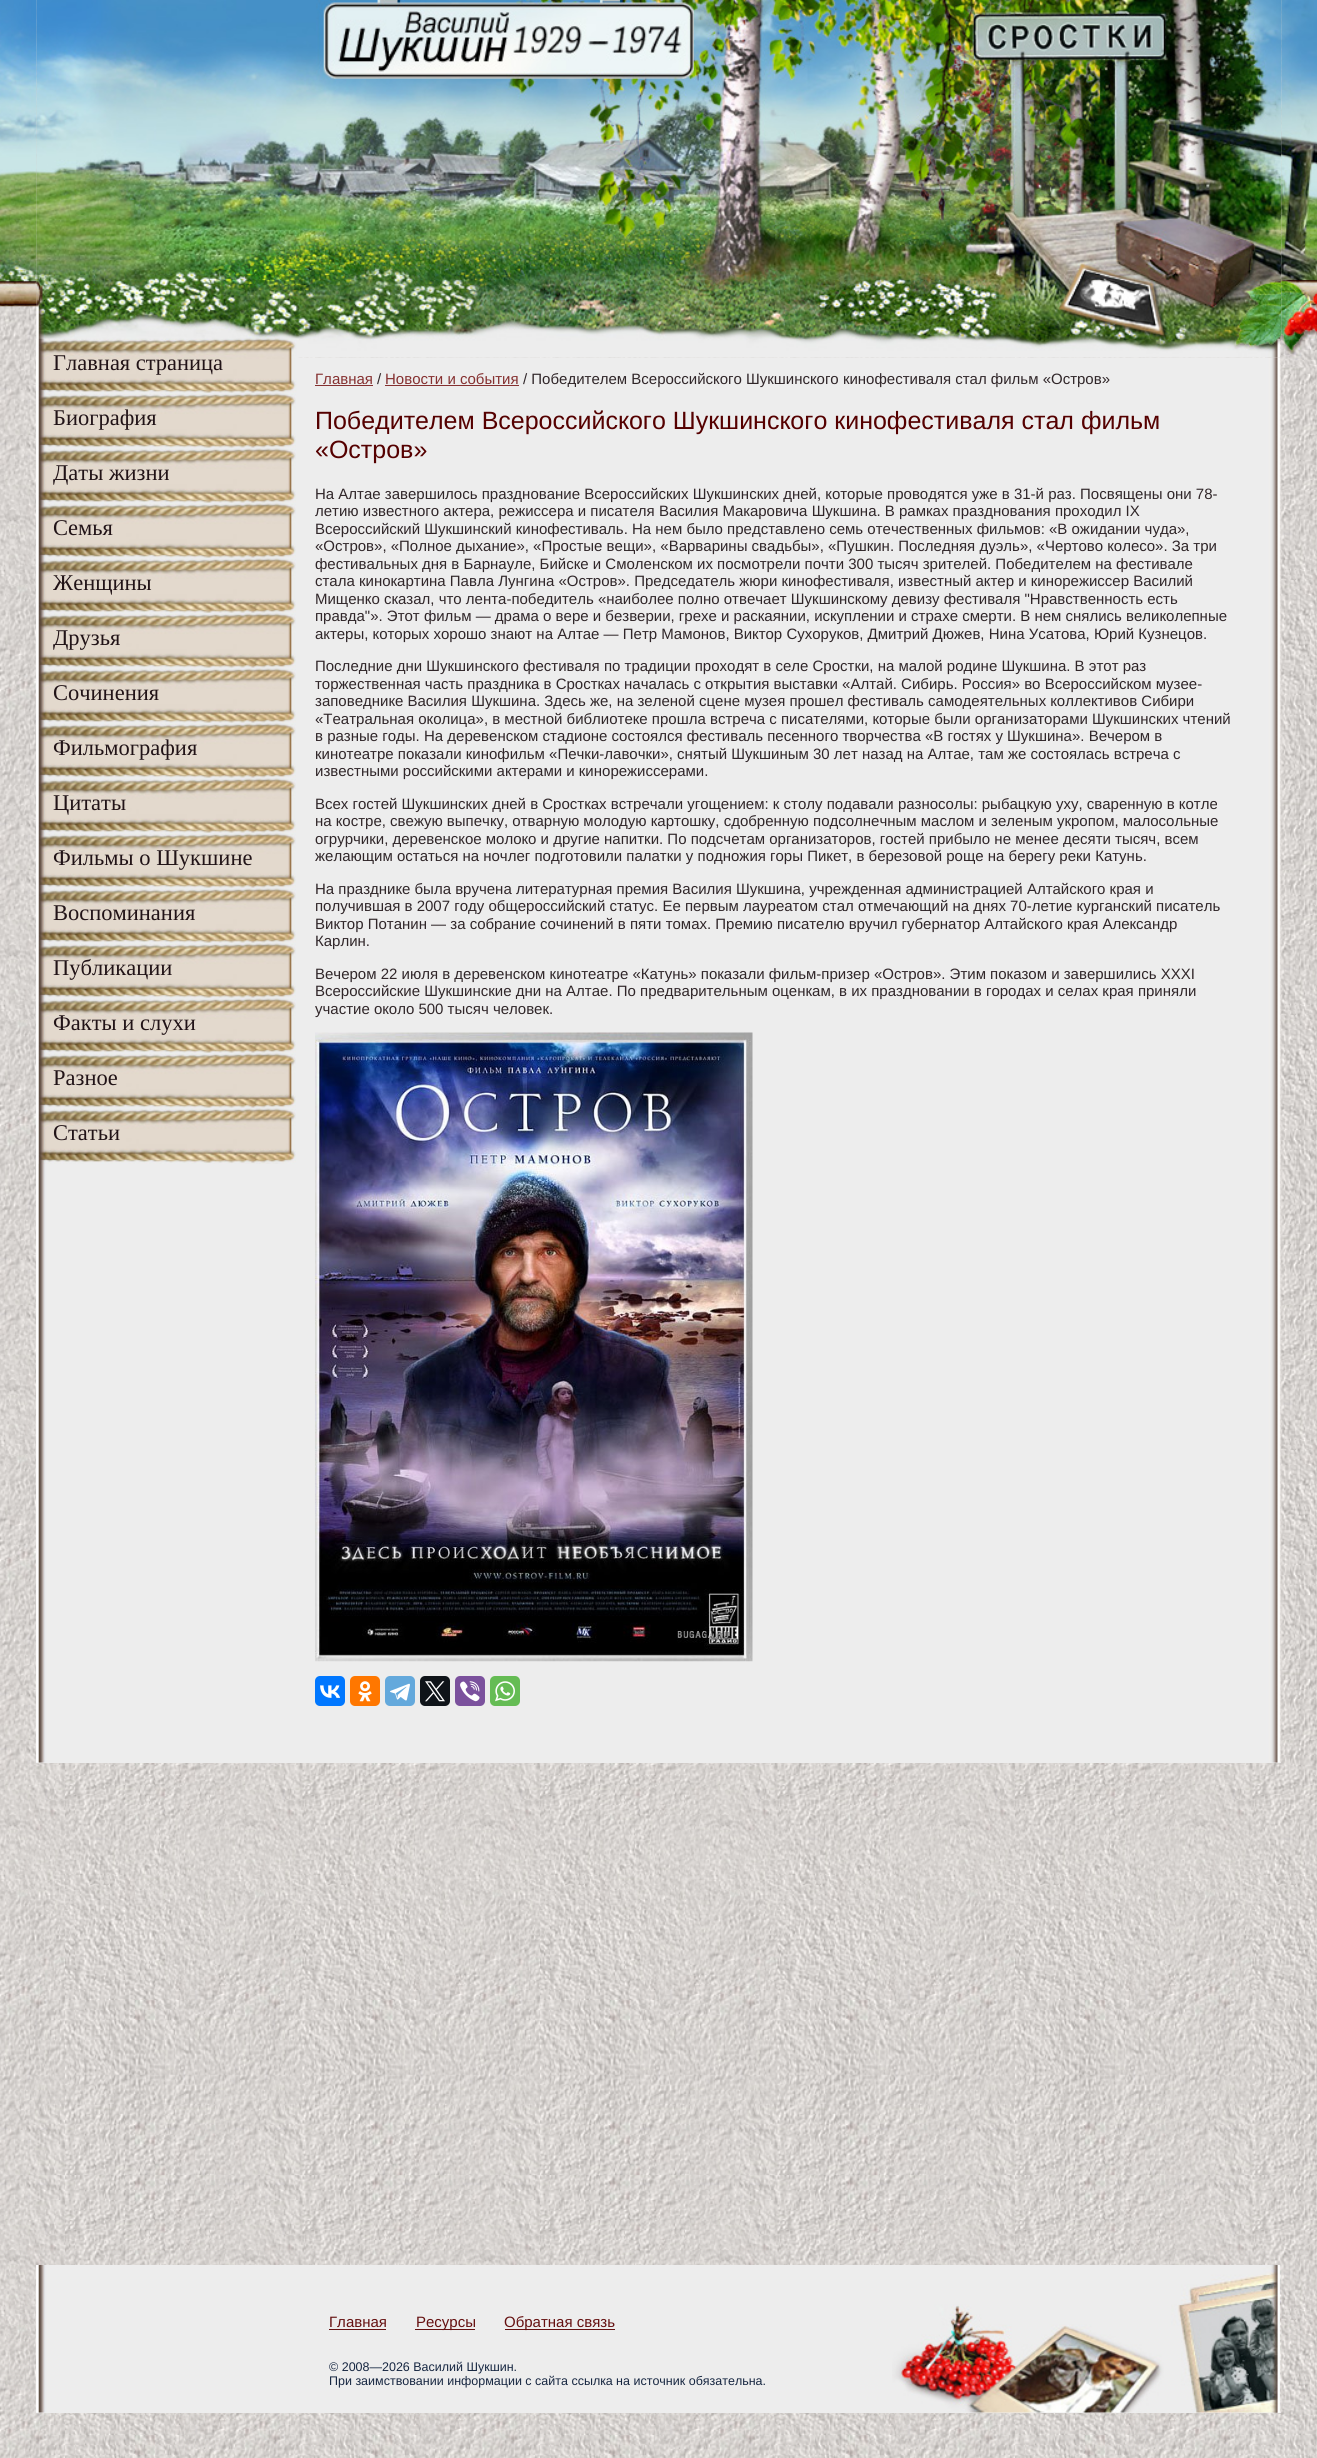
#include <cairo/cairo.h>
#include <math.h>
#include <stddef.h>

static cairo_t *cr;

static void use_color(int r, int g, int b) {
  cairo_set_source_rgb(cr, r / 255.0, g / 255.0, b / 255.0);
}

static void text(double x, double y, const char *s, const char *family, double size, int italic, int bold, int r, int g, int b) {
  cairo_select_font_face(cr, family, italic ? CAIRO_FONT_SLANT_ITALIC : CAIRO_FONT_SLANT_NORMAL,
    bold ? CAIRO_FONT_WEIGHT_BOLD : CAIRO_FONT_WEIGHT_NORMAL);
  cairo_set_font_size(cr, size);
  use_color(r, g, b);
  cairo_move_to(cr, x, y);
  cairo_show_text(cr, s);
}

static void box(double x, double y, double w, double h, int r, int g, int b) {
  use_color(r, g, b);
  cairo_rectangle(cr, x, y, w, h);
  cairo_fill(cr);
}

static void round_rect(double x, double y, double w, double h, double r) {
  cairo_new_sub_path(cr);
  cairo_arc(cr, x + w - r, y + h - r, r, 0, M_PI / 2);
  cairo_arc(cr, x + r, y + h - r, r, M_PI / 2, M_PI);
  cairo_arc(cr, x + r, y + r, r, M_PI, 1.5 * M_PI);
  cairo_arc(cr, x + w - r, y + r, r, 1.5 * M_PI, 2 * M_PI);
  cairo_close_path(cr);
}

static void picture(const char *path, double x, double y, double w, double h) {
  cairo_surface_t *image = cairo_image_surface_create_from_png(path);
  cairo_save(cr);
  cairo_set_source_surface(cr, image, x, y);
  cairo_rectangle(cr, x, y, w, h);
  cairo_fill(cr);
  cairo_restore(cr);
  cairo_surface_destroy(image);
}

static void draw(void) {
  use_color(255, 255, 255);
  cairo_paint(cr);
  picture("img_01.png", 0, 0, 1317, 2458);
  picture("img_02.png", 0, 0, 37, 307);
  picture("img_04.png", 36, 0, 1246, 358);
  picture("img_03.png", 1281, 0, 36, 368);
  box(36, 358, 1245, 1405, 237, 237, 237);
  picture("img_05.png", 36, 357, 1246, 1406);
  picture("img_06.png", 36, 338, 263, 56);
  picture("img_07.png", 38, 393, 258, 56);
  picture("img_07.png", 38, 448, 258, 56);
  picture("img_07.png", 38, 503, 258, 56);
  picture("img_08.png", 38, 558, 258, 56);
  picture("img_07.png", 38, 613, 258, 56);
  picture("img_07.png", 38, 668, 258, 56);
  picture("img_07.png", 38, 723, 258, 56);
  picture("img_09.png", 38, 778, 258, 56);
  picture("img_07.png", 38, 833, 258, 56);
  picture("img_07.png", 38, 888, 258, 56);
  picture("img_07.png", 38, 943, 258, 56);
  picture("img_07.png", 38, 998, 258, 56);
  picture("img_07.png", 38, 1053, 258, 56);
  picture("img_07.png", 38, 1108, 258, 56);
  box(315, 385, 58, 1, 133, 48, 48);
  box(385, 385, 134, 1, 133, 48, 48);
  picture("img_10.png", 315, 1032, 438, 630);
  use_color(0, 119, 255);
  round_rect(315, 1676, 30, 30, 5);
  cairo_fill(cr);
  picture("img_11.png", 320, 1685, 20, 13);
  use_color(255, 119, 0);
  round_rect(350, 1676, 30, 30, 5);
  cairo_fill(cr);
  picture("img_12.png", 358, 1681, 14, 21);
  use_color(100, 169, 220);
  round_rect(385, 1676, 30, 30, 5);
  cairo_fill(cr);
  picture("img_13.png", 390, 1683, 20, 18);
  use_color(15, 20, 25);
  round_rect(420, 1676, 30, 30, 5);
  cairo_fill(cr);
  picture("img_14.png", 425, 1681, 20, 21);
  use_color(123, 81, 157);
  round_rect(455, 1676, 30, 30, 5);
  cairo_fill(cr);
  picture("img_15.png", 460, 1681, 20, 21);
  use_color(101, 188, 84);
  round_rect(490, 1676, 30, 30, 5);
  cairo_fill(cr);
  picture("img_16.png", 495, 1681, 20, 21);
  box(36, 2265, 1245, 148, 237, 237, 237);
  picture("img_17.png", 36, 2265, 1246, 148);
  box(329, 2329, 57, 1, 101, 16, 16);
  box(415, 2329, 60, 1, 101, 16, 16);
  box(505, 2329, 110, 1, 101, 16, 16);
  picture("img_18.png", 892, 2265, 390, 148);
  text(53, 370, "Главная страница", "Liberation Serif", 22.5, 0, 0, 33, 19, 23);
  text(53, 425, "Биография", "Liberation Serif", 22.5, 0, 0, 33, 19, 23);
  text(53, 480, "Даты жизни", "Liberation Serif", 22.5, 0, 0, 33, 19, 23);
  text(53, 535, "Семья", "Liberation Serif", 22.5, 0, 0, 33, 19, 23);
  text(53, 590, "Женщины", "Liberation Serif", 22.5, 0, 0, 33, 19, 23);
  text(53, 645, "Друзья", "Liberation Serif", 22.5, 0, 0, 33, 19, 23);
  text(53, 700, "Сочинения", "Liberation Serif", 22.5, 0, 0, 33, 19, 23);
  text(53, 755, "Фильмография", "Liberation Serif", 22.5, 0, 0, 33, 19, 23);
  text(53, 810, "Цитаты", "Liberation Serif", 22.5, 0, 0, 33, 19, 23);
  text(53, 865, "Фильмы о Шукшине", "Liberation Serif", 22.5, 0, 0, 33, 19, 23);
  text(53, 920, "Воспоминания", "Liberation Serif", 22.5, 0, 0, 33, 19, 23);
  text(53, 975, "Публикации", "Liberation Serif", 22.5, 0, 0, 33, 19, 23);
  text(53, 1030, "Факты и слухи", "Liberation Serif", 22.5, 0, 0, 33, 19, 23);
  text(53, 1085, "Разное", "Liberation Serif", 22.5, 0, 0, 33, 19, 23);
  text(53, 1140, "Статьи", "Liberation Serif", 22.5, 0, 0, 33, 19, 23);
  text(315, 384, "Главная", "Liberation Sans", 15, 0, 0, 133, 48, 48);
  text(377, 384, "/", "Liberation Sans", 15, 0, 0, 48, 38, 41);
  text(385, 384, "Новости и события", "Liberation Sans", 15, 0, 0, 133, 48, 48);
  text(523, 384, "/ Победителем Всероссийского Шукшинского кинофестиваля стал фильм «Остров»", "Liberation Sans", 15, 0, 0, 48, 38, 41);
  text(315, 429, "Победителем Всероссийского Шукшинского кинофестиваля стал фильм", "Liberation Sans", 25, 0, 0, 85, 0, 0);
  text(315, 458, "«Остров»", "Liberation Sans", 25, 0, 0, 85, 0, 0);
  text(315, 499, "На Алтае завершилось празднование Всероссийских Шукшинских дней, которые проводятся уже в 31-й раз. Посвящены они 78-", "Liberation Sans", 15, 0, 0, 48, 38, 41);
  text(315, 516, "летию известного актера, режиссера и писателя Василия Макаровича Шукшина. В рамках празднования проходил IX", "Liberation Sans", 15, 0, 0, 48, 38, 41);
  text(315, 534, "Всероссийский Шукшинский кинофестиваль. На нем было представлено семь отечественных фильмов: «В ожидании чуда»,", "Liberation Sans", 15, 0, 0, 48, 38, 41);
  text(315, 551, "«Остров», «Полное дыхание», «Простые вещи», «Варварины свадьбы», «Пушкин. Последняя дуэль», «Чертово колесо». За три", "Liberation Sans", 15, 0, 0, 48, 38, 41);
  text(315, 569, "фестивальных дня в Барнауле, Бийске и Смоленском их посмотрели почти 300 тысяч зрителей. Победителем на фестивале", "Liberation Sans", 15, 0, 0, 48, 38, 41);
  text(315, 586, "стала кинокартина Павла Лунгина «Остров». Председатель жюри кинофестиваля, известный актер и кинорежиссер Василий", "Liberation Sans", 15, 0, 0, 48, 38, 41);
  text(315, 604, "Мищенко сказал, что лента-победитель «наиболее полно отвечает Шукшинскому девизу фестиваля \"Нравственность есть", "Liberation Sans", 15, 0, 0, 48, 38, 41);
  text(315, 621, "правда\"». Этот фильм — драма о вере и безверии, грехе и раскаянии, искуплении и страхе смерти. В нем снялись великолепные", "Liberation Sans", 15, 0, 0, 48, 38, 41);
  text(315, 639, "актеры, которых хорошо знают на Алтае — Петр Мамонов, Виктор Сухоруков, Дмитрий Дюжев, Нина Усатова, Юрий Кузнецов.", "Liberation Sans", 15, 0, 0, 48, 38, 41);
  text(315, 671, "Последние дни Шукшинского фестиваля по традиции проходят в селе Сростки, на малой родине Шукшина. В этот раз", "Liberation Sans", 15, 0, 0, 48, 38, 41);
  text(315, 689, "торжественная часть праздника в Сростках началась с открытия выставки «Алтай. Сибирь. Россия» во Всероссийском музее-", "Liberation Sans", 15, 0, 0, 48, 38, 41);
  text(315, 706, "заповеднике Василия Шукшина. Здесь же, на зеленой сцене музея прошел фестиваль самодеятельных коллективов Сибири", "Liberation Sans", 15, 0, 0, 48, 38, 41);
  text(315, 724, "«Театральная околица», в местной библиотеке прошла встреча с писателями, которые были организаторами Шукшинских чтений", "Liberation Sans", 15, 0, 0, 48, 38, 41);
  text(315, 741, "в разные годы. На деревенском стадионе состоялся фестиваль песенного творчества «В гостях у Шукшина». Вечером в", "Liberation Sans", 15, 0, 0, 48, 38, 41);
  text(315, 759, "кинотеатре показали кинофильм «Печки-лавочки», снятый Шукшиным 30 лет назад на Алтае, там же состоялась встреча с", "Liberation Sans", 15, 0, 0, 48, 38, 41);
  text(315, 776, "известными российскими актерами и кинорежиссерами.", "Liberation Sans", 15, 0, 0, 48, 38, 41);
  text(315, 809, "Всех гостей Шукшинских дней в Сростках встречали угощением: к столу подавали разносолы: рыбацкую уху, сваренную в котле", "Liberation Sans", 15, 0, 0, 48, 38, 41);
  text(315, 826, "на костре, свежую выпечку, отварную молодую картошку, сдобренную подсолнечным маслом и зеленым укропом, малосольные", "Liberation Sans", 15, 0, 0, 48, 38, 41);
  text(315, 844, "огрурчики, деревенское молоко и другие напитки. По подсчетам организаторов, гостей прибыло не менее десяти тысяч, всем", "Liberation Sans", 15, 0, 0, 48, 38, 41);
  text(315, 861, "желающим остаться на ночлег подготовили палатки у подножия горы Пикет, в березовой роще на берегу реки Катунь.", "Liberation Sans", 15, 0, 0, 48, 38, 41);
  text(315, 894, "На празднике была вручена литературная премия Василия Шукшина, учрежденная администрацией Алтайского края и", "Liberation Sans", 15, 0, 0, 48, 38, 41);
  text(315, 911, "получившая в 2007 году общероссийский статус. Ее первым лауреатом стал отмечающий на днях 70-летие курганский писатель", "Liberation Sans", 15, 0, 0, 48, 38, 41);
  text(315, 929, "Виктор Потанин — за собрание сочинений в пяти томах. Премию писателю вручил губернатор Алтайского края Александр", "Liberation Sans", 15, 0, 0, 48, 38, 41);
  text(315, 946, "Карлин.", "Liberation Sans", 15, 0, 0, 48, 38, 41);
  text(315, 979, "Вечером 22 июля в деревенском кинотеатре «Катунь» показали фильм-призер «Остров». Этим показом и завершились XXXI", "Liberation Sans", 15, 0, 0, 48, 38, 41);
  text(315, 996, "Всероссийские Шукшинские дни на Алтае. По предварительным оценкам, в их праздновании в городах и селах края приняли", "Liberation Sans", 15, 0, 0, 48, 38, 41);
  text(315, 1014, "участие около 500 тысяч человек.", "Liberation Sans", 15, 0, 0, 48, 38, 41);
  text(329, 2327, "Главная", "Liberation Sans", 15, 0, 0, 101, 16, 16);
  text(416, 2327, "Ресурсы", "Liberation Sans", 15, 0, 0, 101, 16, 16);
  text(504, 2327, "Обратная связь", "Liberation Sans", 15, 0, 0, 101, 16, 16);
  text(329, 2371, "© 2008—2026 Василий Шукшин.", "Liberation Sans", 12.5, 0, 0, 22, 38, 65);
  text(329, 2385, "При заимствовании информации с сайта ссылка на источник обязательна.", "Liberation Sans", 12.5, 0, 0, 22, 38, 65);
}

int main(void) {
  cairo_surface_t *surface = cairo_image_surface_create(CAIRO_FORMAT_RGB24, 1317, 2458);
  cr = cairo_create(surface);
  cairo_font_options_t *options = cairo_font_options_create();
  cairo_font_options_set_hint_metrics(options, CAIRO_HINT_METRICS_OFF);
  cairo_font_options_set_hint_style(options, CAIRO_HINT_STYLE_NONE);
  cairo_set_font_options(cr, options);
  cairo_set_miter_limit(cr, 4);
  draw();
  cairo_surface_write_to_png(surface, "out.png");
  cairo_font_options_destroy(options);
  cairo_destroy(cr);
  cairo_surface_destroy(surface);
  return 0;
}
